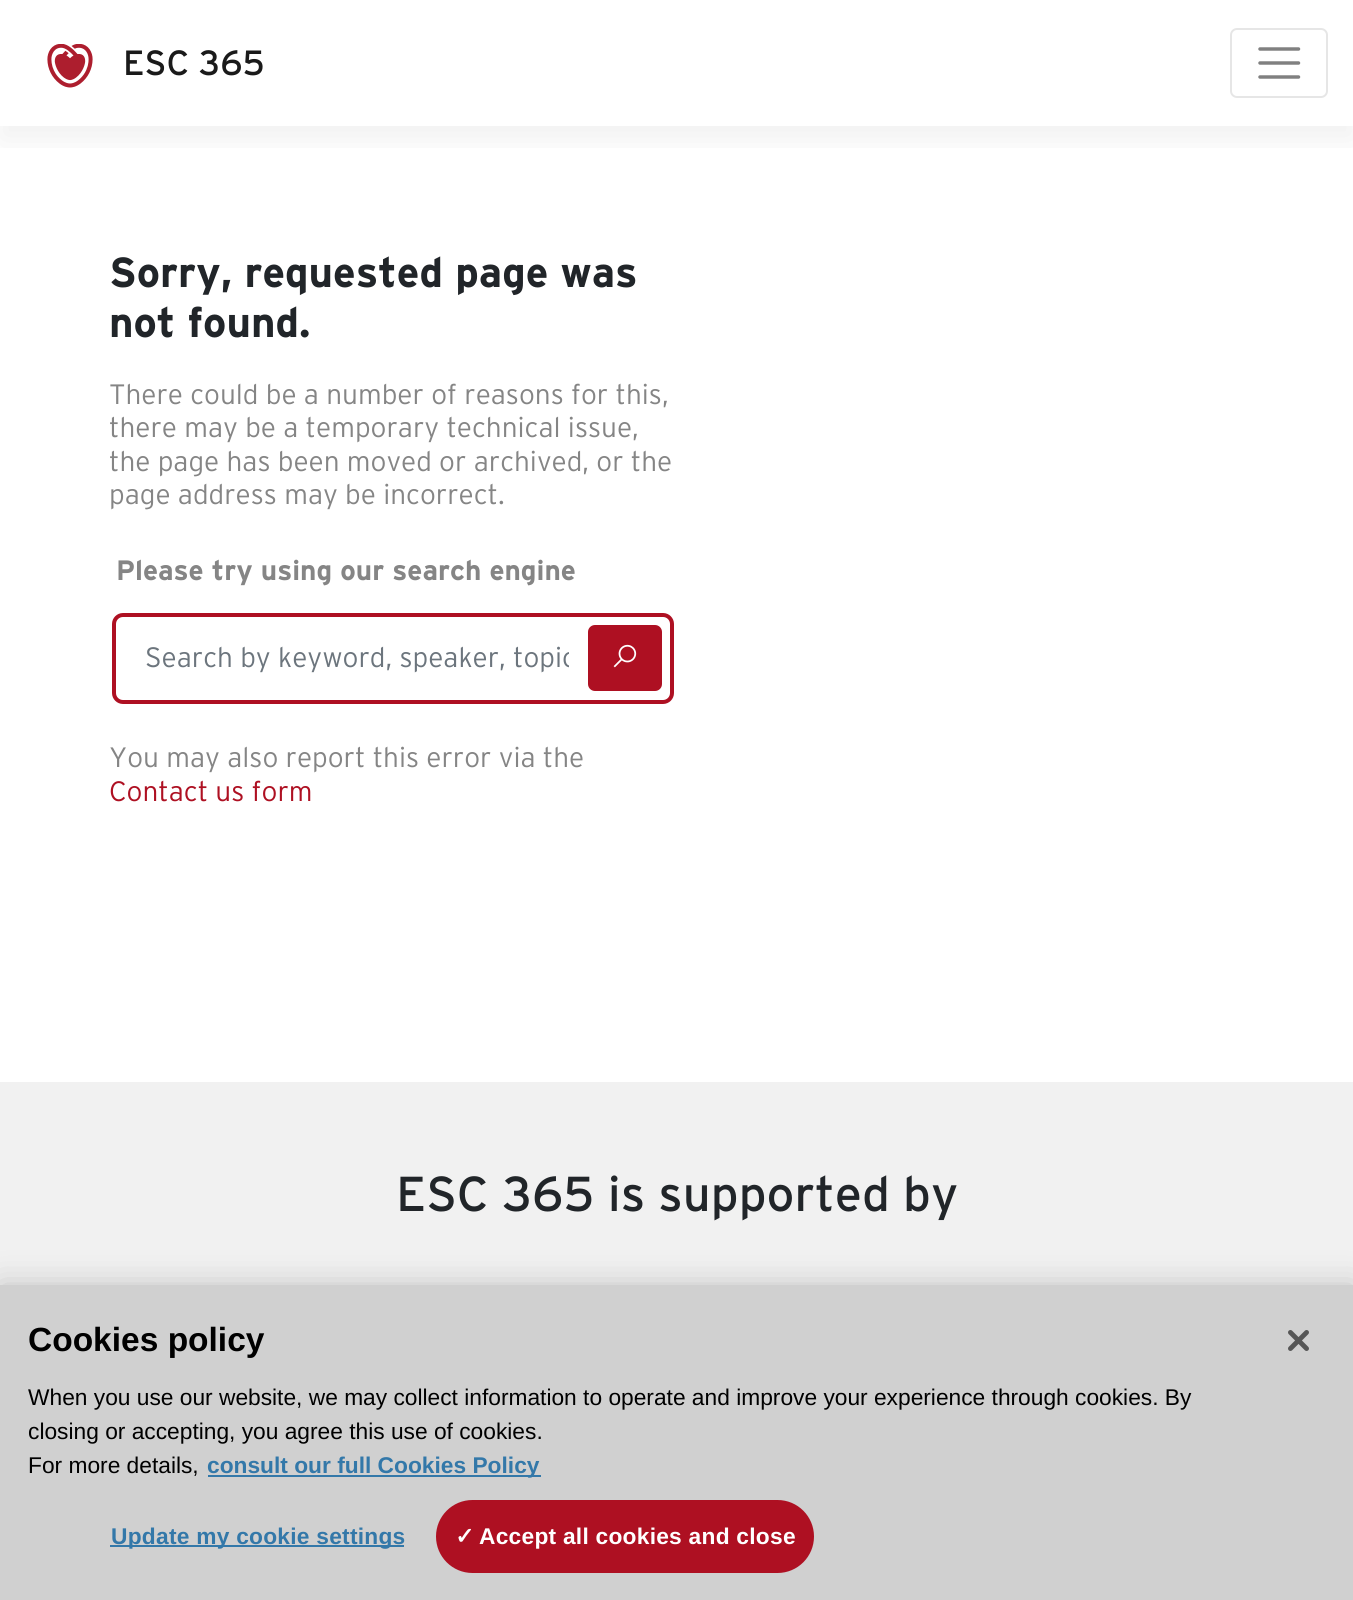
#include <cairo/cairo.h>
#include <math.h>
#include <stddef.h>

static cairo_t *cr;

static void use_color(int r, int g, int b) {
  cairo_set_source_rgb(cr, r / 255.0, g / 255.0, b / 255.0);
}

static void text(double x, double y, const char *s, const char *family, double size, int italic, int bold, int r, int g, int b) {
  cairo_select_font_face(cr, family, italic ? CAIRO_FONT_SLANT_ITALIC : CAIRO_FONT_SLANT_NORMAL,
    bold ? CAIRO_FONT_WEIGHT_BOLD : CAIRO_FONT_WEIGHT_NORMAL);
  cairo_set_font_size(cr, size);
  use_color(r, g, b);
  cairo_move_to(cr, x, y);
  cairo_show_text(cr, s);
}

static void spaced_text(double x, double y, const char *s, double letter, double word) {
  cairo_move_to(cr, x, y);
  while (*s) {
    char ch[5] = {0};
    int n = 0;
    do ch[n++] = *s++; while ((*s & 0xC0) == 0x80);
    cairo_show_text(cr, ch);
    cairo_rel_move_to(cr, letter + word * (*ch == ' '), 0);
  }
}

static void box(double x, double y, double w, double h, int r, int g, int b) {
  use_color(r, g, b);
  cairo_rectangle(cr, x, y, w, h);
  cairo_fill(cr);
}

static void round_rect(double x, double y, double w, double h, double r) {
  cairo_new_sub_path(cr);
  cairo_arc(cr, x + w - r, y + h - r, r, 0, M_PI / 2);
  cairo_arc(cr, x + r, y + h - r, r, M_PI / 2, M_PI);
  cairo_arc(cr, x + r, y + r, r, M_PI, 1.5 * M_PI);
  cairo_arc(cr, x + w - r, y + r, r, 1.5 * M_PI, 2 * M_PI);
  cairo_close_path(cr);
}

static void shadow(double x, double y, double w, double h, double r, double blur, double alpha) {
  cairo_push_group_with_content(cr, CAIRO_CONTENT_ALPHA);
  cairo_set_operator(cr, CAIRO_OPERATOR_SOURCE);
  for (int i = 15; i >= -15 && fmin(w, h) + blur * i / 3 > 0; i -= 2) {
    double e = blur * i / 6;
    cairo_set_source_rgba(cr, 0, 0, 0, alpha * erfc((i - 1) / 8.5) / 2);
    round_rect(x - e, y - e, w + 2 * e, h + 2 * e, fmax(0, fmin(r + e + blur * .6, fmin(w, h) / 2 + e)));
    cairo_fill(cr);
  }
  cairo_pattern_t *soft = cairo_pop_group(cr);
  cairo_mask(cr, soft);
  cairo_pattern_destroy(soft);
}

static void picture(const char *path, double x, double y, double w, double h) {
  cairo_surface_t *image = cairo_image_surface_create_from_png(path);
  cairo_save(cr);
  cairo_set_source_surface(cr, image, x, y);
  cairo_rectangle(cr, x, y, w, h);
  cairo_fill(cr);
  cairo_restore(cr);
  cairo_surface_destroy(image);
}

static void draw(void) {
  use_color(255, 255, 255);
  cairo_paint(cr);
  cairo_save(cr);
  cairo_rectangle(cr, 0, 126, 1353, 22);
  cairo_clip(cr);
  use_color(0, 0, 0);
  shadow(0, 14, 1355, 126, 0, 17.5, 0.06);
  cairo_restore(cr);
  picture("img_01.png", 47, 44, 46, 44);
  round_rect(1231, 29, 96, 68, 6);
  use_color(230, 230, 230);
  cairo_stroke(cr);
  cairo_new_path(cr);
  cairo_move_to(cr, 1260, 49);
  cairo_line_to(cr, 1298.5, 49);
  cairo_move_to(cr, 1260, 63);
  cairo_line_to(cr, 1298.5, 63);
  cairo_move_to(cr, 1260, 77);
  cairo_line_to(cr, 1298.5, 77);
  use_color(128, 128, 128);
  cairo_set_line_width(cr, 3.5);
  cairo_set_line_cap(cr, CAIRO_LINE_CAP_ROUND);
  cairo_stroke(cr);
  round_rect(114, 615, 558, 87, 9);
  use_color(174, 16, 34);
  cairo_set_line_width(cr, 4);
  cairo_set_line_cap(cr, CAIRO_LINE_CAP_BUTT);
  cairo_stroke(cr);
  round_rect(589, 626, 72, 64, 6);
  cairo_fill_preserve(cr);
  cairo_set_line_width(cr, 2);
  cairo_stroke(cr);
  picture("img_02.png", 613, 644, 24, 24);
  box(0, 1082, 1353, 203, 241, 241, 241);
  use_color(0, 0, 0);
  shadow(0, 1285, 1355, 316, 0, 16, 0.2);
  box(0, 1285, 1353, 315, 208, 208, 208);
  box(208, 1475, 333, 2, 51, 120, 169);
  box(110, 1545, 294, 2, 51, 120, 169);
  use_color(174, 16, 34);
  round_rect(437, 1501, 376, 71, 35.5);
  cairo_fill_preserve(cr);
  cairo_stroke(cr);
  picture("img_03.png", 1288, 1330, 21, 21);
  text(123, 75, "ESC 365", "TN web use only", 35, 0, 0, 26, 26, 26);
  text(109, 287, "Sorry, requested page was", "TN web use only", 42, 0, 1, 33, 37, 41);
  text(109, 337, "not found.", "TN web use only", 42, 0, 1, 33, 37, 41);
  text(109, 404, "There could be a number of reasons for this,", "TN web use only Light", 28, 0, 0, 133, 133, 133);
  text(109, 437, "there may be a temporary technical issue,", "TN web use only Light", 28, 0, 0, 133, 133, 133);
  text(109, 471, "the page has been moved or archived, or the", "TN web use only Light", 28, 0, 0, 133, 133, 133);
  text(109, 504, "page address may be incorrect.", "TN web use only Light", 28, 0, 0, 133, 133, 133);
  text(116, 580, "Please try using our search engine", "TN web use only", 28, 0, 1, 133, 133, 133);
  cairo_save(cr);
  cairo_rectangle(cr, 145, 641, 424, 33);
  cairo_clip(cr);
  text(145, 667, "Search by keyword, speaker, topic", "TN web use only Light", 28, 0, 0, 108, 117, 125);
  cairo_restore(cr);
  text(109, 767, "You may also report this error via the", "TN web use only Light", 28, 0, 0, 133, 133, 133);
  text(109, 801, "Contact us form", "TN web use only Light", 28, 0, 0, 174, 16, 34);
  text(396, 1211, "ESC 365 is supported by", "TN web use only", 49, 0, 0, 33, 37, 41);
  text(28, 1351, "Cookies policy", "Liberation Sans", 33.5, 0, 1, 0, 0, 0);
  text(28, 1405, "When you use our website, we may collect information to operate and improve your experience through cookies. By", "Liberation Sans", 22.75, 0, 0, 0, 0, 0);
  text(28, 1439, "closing or accepting, you agree this use of cookies.", "Liberation Sans", 22.75, 0, 0, 0, 0, 0);
  text(28, 1473, "For more details,", "Liberation Sans", 22.75, 0, 0, 0, 0, 0);
  text(207, 1473, "consult our full Cookies Policy", "Liberation Sans", 22.75, 0, 1, 51, 120, 169);
  spaced_text(111, 1544, "Update my cookie settings", 0.25, 0);
  cairo_select_font_face(cr, "DejaVu Sans", CAIRO_FONT_SLANT_NORMAL, CAIRO_FONT_WEIGHT_BOLD);
  cairo_set_font_size(cr, 23);
  use_color(255, 255, 255);
  spaced_text(455, 1544, "✓", 0.25, 0);
  cairo_select_font_face(cr, "Liberation Sans", CAIRO_FONT_SLANT_NORMAL, CAIRO_FONT_WEIGHT_BOLD);
  cairo_set_font_size(cr, 22.75);
  spaced_text(479, 1544, "Accept all cookies and close", 0.25, 0);
}

int main(void) {
  cairo_surface_t *surface = cairo_image_surface_create(CAIRO_FORMAT_RGB24, 1353, 1600);
  cr = cairo_create(surface);
  cairo_font_options_t *options = cairo_font_options_create();
  cairo_font_options_set_hint_metrics(options, CAIRO_HINT_METRICS_OFF);
  cairo_font_options_set_hint_style(options, CAIRO_HINT_STYLE_NONE);
  cairo_set_font_options(cr, options);
  cairo_set_miter_limit(cr, 4);
  draw();
  cairo_surface_write_to_png(surface, "out.png");
  cairo_font_options_destroy(options);
  cairo_destroy(cr);
  cairo_surface_destroy(surface);
  return 0;
}
